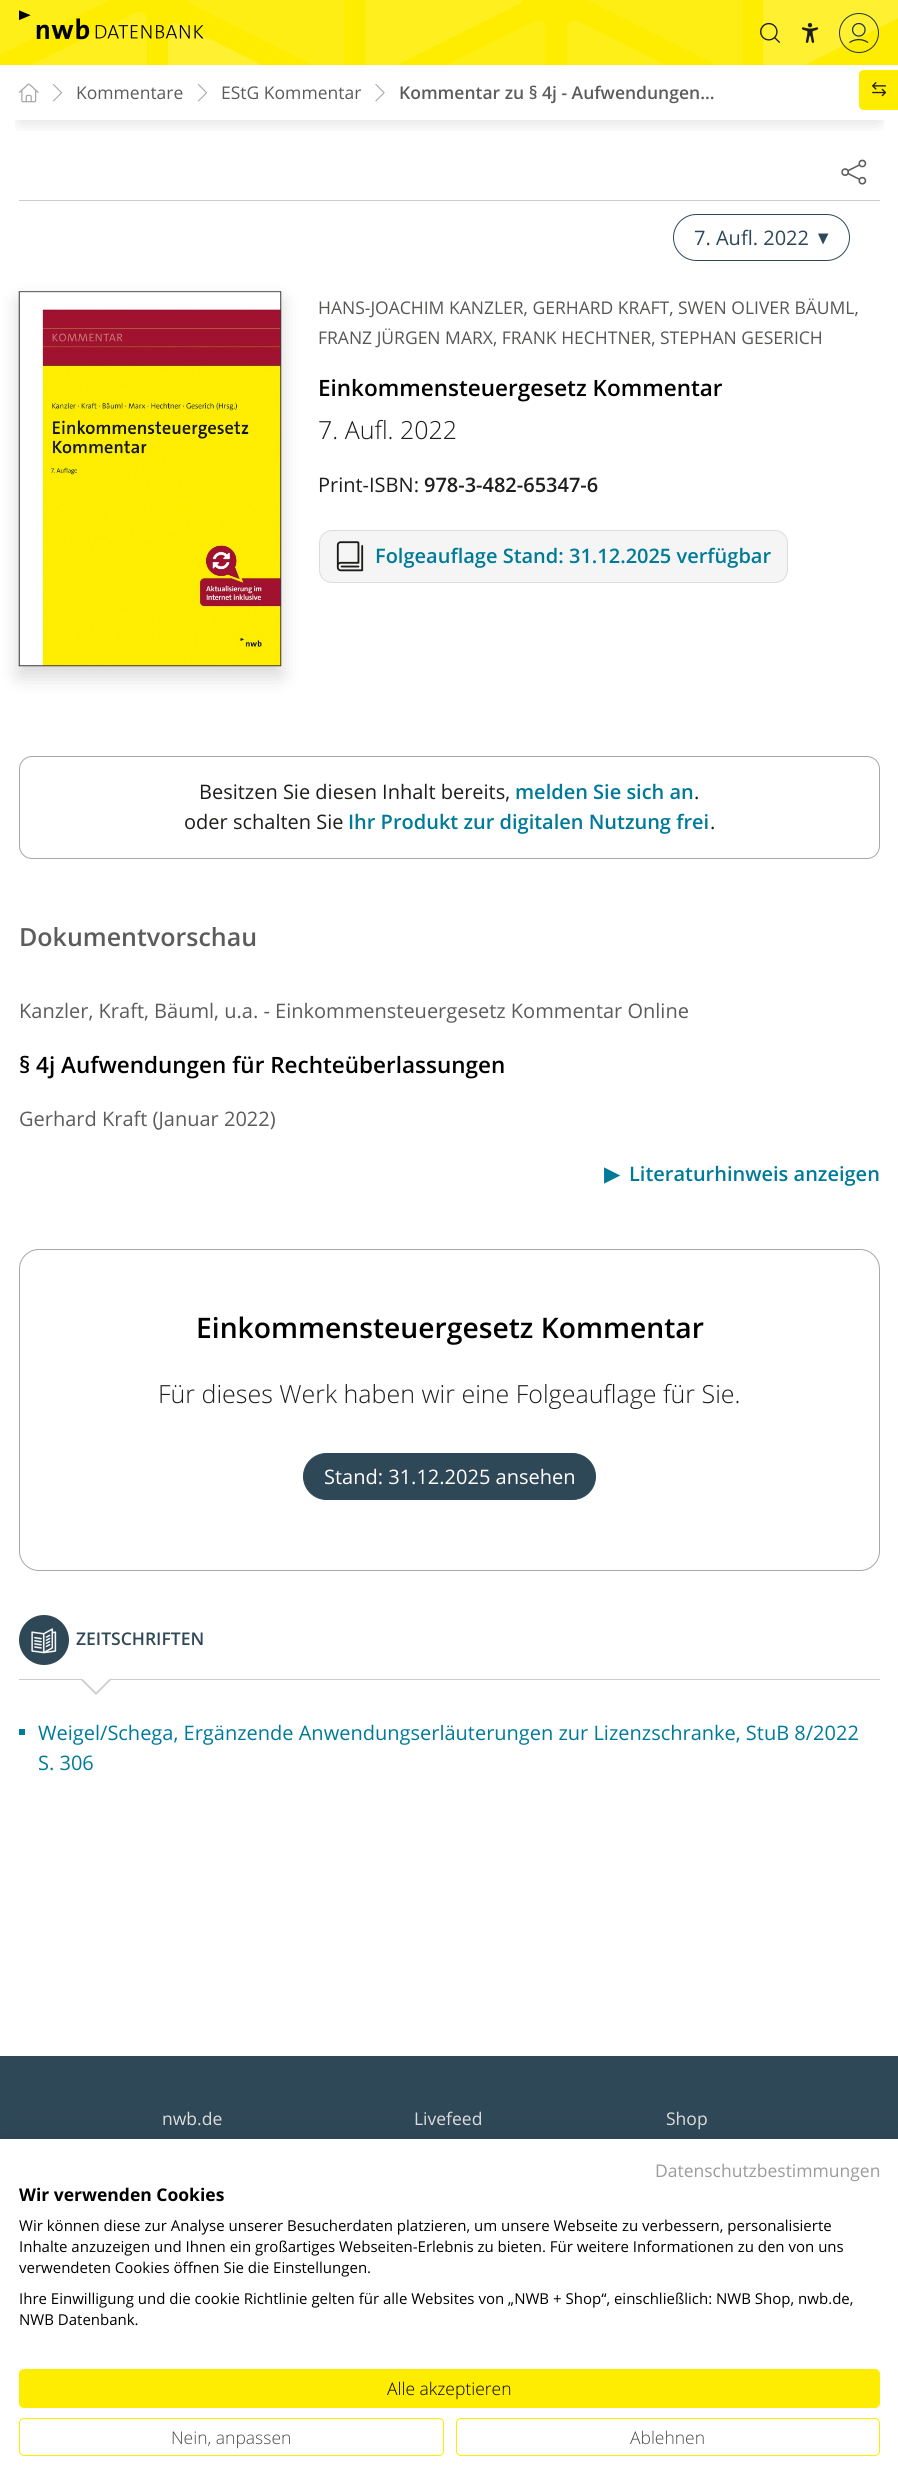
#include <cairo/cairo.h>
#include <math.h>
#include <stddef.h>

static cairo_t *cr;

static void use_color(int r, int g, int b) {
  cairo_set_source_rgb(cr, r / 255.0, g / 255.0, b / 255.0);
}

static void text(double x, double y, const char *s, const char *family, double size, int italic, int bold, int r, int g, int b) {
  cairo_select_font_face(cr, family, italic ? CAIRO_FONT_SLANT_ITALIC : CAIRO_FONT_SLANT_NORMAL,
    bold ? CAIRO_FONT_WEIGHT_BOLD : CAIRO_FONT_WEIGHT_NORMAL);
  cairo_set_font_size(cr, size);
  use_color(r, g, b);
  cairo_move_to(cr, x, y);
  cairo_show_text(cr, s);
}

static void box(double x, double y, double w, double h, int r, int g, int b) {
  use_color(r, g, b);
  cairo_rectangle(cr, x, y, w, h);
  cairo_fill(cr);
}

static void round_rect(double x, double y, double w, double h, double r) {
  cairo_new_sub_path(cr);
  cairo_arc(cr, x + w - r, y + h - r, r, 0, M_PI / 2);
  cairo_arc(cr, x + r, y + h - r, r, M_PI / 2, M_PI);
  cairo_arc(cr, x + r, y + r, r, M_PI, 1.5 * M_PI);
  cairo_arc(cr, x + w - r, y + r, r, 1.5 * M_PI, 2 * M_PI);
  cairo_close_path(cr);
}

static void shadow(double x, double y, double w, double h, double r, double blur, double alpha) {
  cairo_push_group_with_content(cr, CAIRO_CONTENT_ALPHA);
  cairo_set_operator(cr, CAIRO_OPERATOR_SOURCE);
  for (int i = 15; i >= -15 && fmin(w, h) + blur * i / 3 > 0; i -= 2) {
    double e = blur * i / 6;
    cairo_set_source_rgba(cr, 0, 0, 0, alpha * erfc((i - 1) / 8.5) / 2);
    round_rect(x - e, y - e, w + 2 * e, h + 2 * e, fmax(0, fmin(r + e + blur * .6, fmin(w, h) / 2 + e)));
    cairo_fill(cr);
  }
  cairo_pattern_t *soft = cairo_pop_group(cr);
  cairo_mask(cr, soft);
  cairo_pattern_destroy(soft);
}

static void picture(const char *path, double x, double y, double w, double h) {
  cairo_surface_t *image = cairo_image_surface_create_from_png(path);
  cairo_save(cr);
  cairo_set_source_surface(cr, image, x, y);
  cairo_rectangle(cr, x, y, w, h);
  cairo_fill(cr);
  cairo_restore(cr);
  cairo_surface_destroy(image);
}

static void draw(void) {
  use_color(255, 255, 255);
  cairo_paint(cr);
  box(0, 0, 898, 65, 255, 237, 0);
  picture("img_01.png", 0, 0, 898, 65);
  picture("img_02.png", 19, 10, 185, 30);
  picture("img_03.png", 760, 22, 20, 21);
  picture("img_04.png", 801, 22, 18, 21);
  cairo_arc(cr, 859, 33, 19.5, 0, 2 * M_PI);
  use_color(33, 50, 62);
  cairo_set_line_width(cr, 1);
  cairo_stroke(cr);
  picture("img_05.png", 849, 22, 20, 21);
  cairo_save(cr);
  cairo_rectangle(cr, 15, 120, 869, 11);
  cairo_clip(cr);
  use_color(0, 0, 0);
  shadow(20, 105, 859, 15, 0, 10, 0.16);
  cairo_restore(cr);
  picture("img_06.png", 18, 83, 21, 20);
  picture("img_07.png", 52, 84, 11, 18);
  picture("img_07.png", 197, 84, 11, 18);
  picture("img_08.png", 375, 84, 10, 18);
  use_color(255, 237, 0);
  cairo_new_path(cr);
  cairo_move_to(cr, 864, 70);
  cairo_line_to(cr, 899, 70);
  cairo_line_to(cr, 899, 110);
  cairo_line_to(cr, 864, 110);
  cairo_curve_to(cr, 861, 110, 859, 108, 859, 105);
  cairo_line_to(cr, 859, 75);
  cairo_curve_to(cr, 859, 72, 861, 70, 864, 70);
  cairo_close_path(cr);
  cairo_fill(cr);
  picture("img_09.png", 872, 82, 15, 15);
  box(19, 200, 861, 1, 204, 204, 204);
  picture("img_10.png", 841, 159, 26, 26);
  round_rect(673.5, 214.5, 176, 46, 23);
  use_color(47, 72, 88);
  cairo_stroke(cr);
  cairo_new_path(cr);
  cairo_move_to(cr, 823, 244.5);
  cairo_line_to(cr, 818, 233.5);
  cairo_line_to(cr, 828.5, 233.5);
  cairo_close_path(cr);
  cairo_fill(cr);
  use_color(0, 0, 0);
  shadow(19, 301, 262, 375, 0, 10, 0.16);
  picture("img_11.png", 18, 291, 264, 376);
  use_color(245, 245, 245);
  round_rect(319.5, 530.5, 468, 52, 12.5);
  cairo_fill_preserve(cr);
  use_color(220, 220, 220);
  cairo_stroke(cr);
  picture("img_12.png", 336, 541, 28, 31);
  round_rect(19.5, 756.5, 860, 102, 12.5);
  use_color(167, 167, 167);
  cairo_stroke(cr);
  round_rect(19.5, 1249.5, 860, 321, 19.5);
  cairo_stroke(cr);
  use_color(47, 72, 88);
  round_rect(303.5, 1453.5, 292, 46, 23);
  cairo_fill_preserve(cr);
  cairo_stroke(cr);
  cairo_arc(cr, 44, 1640, 25, 0, 2 * M_PI);
  cairo_fill(cr);
  picture("img_13.png", 31, 1628, 26, 26);
  box(19, 1679, 861, 1, 204, 204, 204);
  cairo_new_path(cr);
  cairo_move_to(cr, 81, 1680);
  cairo_line_to(cr, 111, 1680);
  cairo_line_to(cr, 96, 1695);
  cairo_close_path(cr);
  cairo_fill(cr);
  use_color(255, 255, 255);
  cairo_new_path(cr);
  cairo_move_to(cr, 81, 1677.5);
  cairo_line_to(cr, 111, 1677.5);
  cairo_line_to(cr, 96, 1692.5);
  cairo_close_path(cr);
  cairo_fill(cr);
  box(19, 1729, 6, 6, 0, 122, 153);
  box(0, 2056, 898, 83, 47, 72, 88);
  use_color(0, 0, 0);
  shadow(0, 2139, 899, 351, 0, 15, 0.1);
  box(0, 2139, 898, 351, 255, 255, 255);
  use_color(255, 237, 0);
  round_rect(19.5, 2369.5, 860, 38, 4.5);
  cairo_fill_preserve(cr);
  cairo_stroke(cr);
  round_rect(19.5, 2418.5, 424, 37, 4.5);
  cairo_stroke(cr);
  round_rect(456.5, 2418.5, 423, 37, 4.5);
  cairo_stroke(cr);
  text(76, 99, "Kommentare", "Open Sans", 17.5, 0, 0, 92, 92, 92);
  text(221, 99, "EStG Kommentar", "Open Sans", 17.5, 0, 0, 92, 92, 92);
  text(399, 99, "Kommentar zu § 4j - Aufwendungen...", "Open Sans SemiBold", 17.5, 0, 0, 92, 92, 92);
  text(694, 245, "7. Aufl. 2022", "Open Sans", 20, 0, 0, 47, 72, 88);
  text(318, 314, "HANS-JOACHIM KANZLER, GERHARD KRAFT, SWEN OLIVER BÄUML,", "Open Sans", 17.5, 0, 0, 86, 86, 84);
  text(318, 344, "FRANZ JÜRGEN MARX, FRANK HECHTNER, STEPHAN GESERICH", "Open Sans", 17.5, 0, 0, 86, 86, 84);
  text(318, 396, "Einkommensteuergesetz Kommentar", "Open Sans SemiBold", 22.5, 0, 0, 0, 0, 0);
  text(318, 439, "7. Aufl. 2022", "Open Sans Light", 25, 0, 0, 29, 29, 27);
  text(318, 492, "Print-ISBN:", "Open Sans", 20, 0, 0, 29, 29, 27);
  text(424, 492, "978-3-482-65347-6", "Open Sans SemiBold", 20, 0, 0, 29, 29, 27);
  text(375, 563, "Folgeauflage Stand: 31.12.2025 verfügbar", "Open Sans SemiBold", 20, 0, 0, 0, 122, 153);
  text(199, 799, "Besitzen Sie diesen Inhalt bereits,", "Open Sans", 20, 0, 0, 29, 29, 27);
  text(515, 799, "melden Sie sich an", "Open Sans SemiBold", 20, 0, 0, 0, 122, 153);
  text(694, 799, ".", "Open Sans", 20, 0, 0, 29, 29, 27);
  text(184, 829, "oder schalten Sie", "Open Sans", 20, 0, 0, 29, 29, 27);
  text(348, 829, "Ihr Produkt zur digitalen Nutzung frei", "Open Sans SemiBold", 20, 0, 0, 0, 122, 153);
  text(710, 829, ".", "Open Sans", 20, 0, 0, 29, 29, 27);
  text(19, 946, "Dokumentvorschau", "Open Sans SemiBold", 25, 0, 0, 92, 92, 92);
  text(19, 1018, "Kanzler, Kraft, Bäuml, u.a. - Einkommensteuergesetz Kommentar Online", "Open Sans", 20, 0, 0, 92, 92, 92);
  text(19, 1073, "§ 4j Aufwendungen für Rechteüberlassungen", "Open Sans SemiBold", 22.5, 0, 0, 0, 0, 0);
  text(19, 1126, "Gerhard Kraft (Januar 2022)", "Open Sans", 20, 0, 0, 92, 92, 92);
  text(604, 1181, "▶", "DejaVu Sans", 20, 0, 1, 0, 122, 153);
  text(629, 1181, "Literaturhinweis anzeigen", "Open Sans SemiBold", 20, 0, 0, 0, 122, 153);
  text(196, 1338, "Einkommensteuergesetz Kommentar", "Open Sans SemiBold", 28.25, 0, 0, 0, 0, 0);
  text(158, 1403, "Für dieses Werk haben wir eine Folgeauflage für Sie.", "Open Sans Light", 25, 0, 0, 29, 29, 27);
  text(324, 1484, "Stand: 31.12.2025 ansehen", "Open Sans", 20, 0, 0, 255, 255, 255);
  text(76, 1645, "ZEITSCHRIFTEN", "Open Sans SemiBold", 17.5, 0, 0, 47, 72, 88);
  text(38, 1740, "Weigel/Schega, Ergänzende Anwendungserläuterungen zur Lizenzschranke, StuB 8/2022", "Open Sans", 20, 0, 0, 0, 122, 153);
  text(38, 1770, "S. 306", "Open Sans", 20, 0, 0, 0, 122, 153);
  text(162, 2125, "nwb.de", "Open Sans", 17.5, 0, 0, 220, 220, 220);
  text(414, 2125, "Livefeed", "Open Sans", 17.5, 0, 0, 220, 220, 220);
  text(666, 2125, "Shop", "Open Sans", 17.5, 0, 0, 220, 220, 220);
  text(655, 2177, "Datenschutzbestimmungen", "Open Sans", 17.5, 0, 0, 155, 155, 155);
  text(19, 2201, "Wir verwenden Cookies", "Open Sans", 17.5, 0, 1, 0, 0, 0);
  text(19, 2231, "Wir können diese zur Analyse unserer Besucherdaten platzieren, um unsere Webseite zu verbessern, personalisierte", "Open Sans", 15, 0, 0, 0, 0, 0);
  text(19, 2252, "Inhalte anzuzeigen und Ihnen ein großartiges Webseiten-Erlebnis zu bieten. Für weitere Informationen zu den von uns", "Open Sans", 15, 0, 0, 0, 0, 0);
  text(19, 2273, "verwendeten Cookies öffnen Sie die Einstellungen.", "Open Sans", 15, 0, 0, 0, 0, 0);
  text(19, 2304, "Ihre Einwilligung und die cookie Richtlinie gelten für alle Websites von „NWB + Shop“, einschließlich: NWB Shop, nwb.de,", "Open Sans", 15, 0, 0, 0, 0, 0);
  text(19, 2325, "NWB Datenbank.", "Open Sans", 15, 0, 0, 0, 0, 0);
  text(387, 2395, "Alle akzeptieren", "Open Sans Light", 17.5, 0, 0, 0, 0, 0);
  text(171, 2444, "Nein, anpassen", "Open Sans Light", 17.5, 0, 0, 74, 74, 74);
  text(630, 2444, "Ablehnen", "Open Sans Light", 17.5, 0, 0, 74, 74, 74);
}

int main(void) {
  cairo_surface_t *surface = cairo_image_surface_create(CAIRO_FORMAT_RGB24, 898, 2490);
  cr = cairo_create(surface);
  cairo_font_options_t *options = cairo_font_options_create();
  cairo_font_options_set_hint_metrics(options, CAIRO_HINT_METRICS_OFF);
  cairo_font_options_set_hint_style(options, CAIRO_HINT_STYLE_NONE);
  cairo_set_font_options(cr, options);
  cairo_set_miter_limit(cr, 4);
  draw();
  cairo_surface_write_to_png(surface, "out.png");
  cairo_font_options_destroy(options);
  cairo_destroy(cr);
  cairo_surface_destroy(surface);
  return 0;
}
